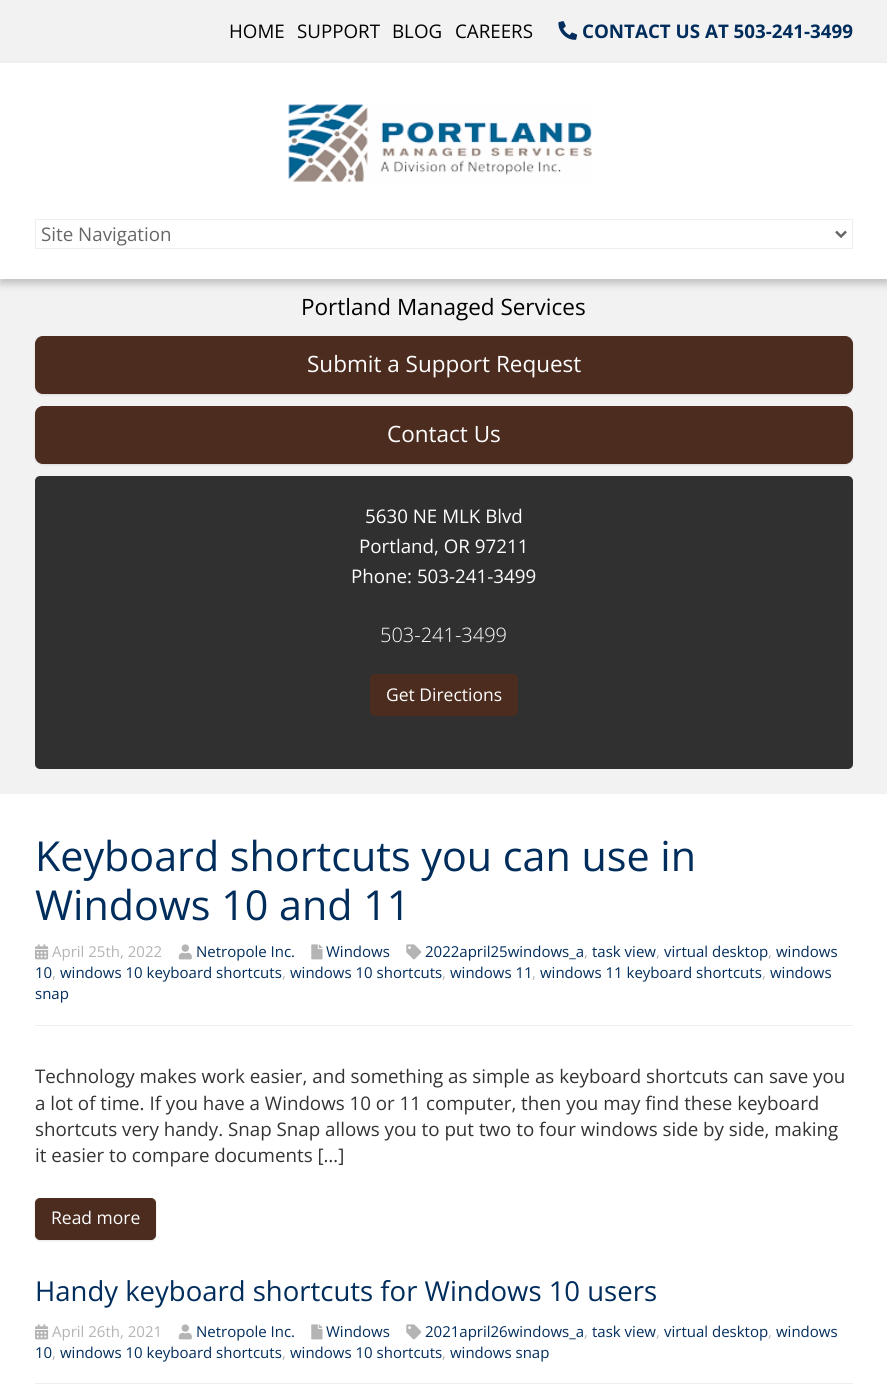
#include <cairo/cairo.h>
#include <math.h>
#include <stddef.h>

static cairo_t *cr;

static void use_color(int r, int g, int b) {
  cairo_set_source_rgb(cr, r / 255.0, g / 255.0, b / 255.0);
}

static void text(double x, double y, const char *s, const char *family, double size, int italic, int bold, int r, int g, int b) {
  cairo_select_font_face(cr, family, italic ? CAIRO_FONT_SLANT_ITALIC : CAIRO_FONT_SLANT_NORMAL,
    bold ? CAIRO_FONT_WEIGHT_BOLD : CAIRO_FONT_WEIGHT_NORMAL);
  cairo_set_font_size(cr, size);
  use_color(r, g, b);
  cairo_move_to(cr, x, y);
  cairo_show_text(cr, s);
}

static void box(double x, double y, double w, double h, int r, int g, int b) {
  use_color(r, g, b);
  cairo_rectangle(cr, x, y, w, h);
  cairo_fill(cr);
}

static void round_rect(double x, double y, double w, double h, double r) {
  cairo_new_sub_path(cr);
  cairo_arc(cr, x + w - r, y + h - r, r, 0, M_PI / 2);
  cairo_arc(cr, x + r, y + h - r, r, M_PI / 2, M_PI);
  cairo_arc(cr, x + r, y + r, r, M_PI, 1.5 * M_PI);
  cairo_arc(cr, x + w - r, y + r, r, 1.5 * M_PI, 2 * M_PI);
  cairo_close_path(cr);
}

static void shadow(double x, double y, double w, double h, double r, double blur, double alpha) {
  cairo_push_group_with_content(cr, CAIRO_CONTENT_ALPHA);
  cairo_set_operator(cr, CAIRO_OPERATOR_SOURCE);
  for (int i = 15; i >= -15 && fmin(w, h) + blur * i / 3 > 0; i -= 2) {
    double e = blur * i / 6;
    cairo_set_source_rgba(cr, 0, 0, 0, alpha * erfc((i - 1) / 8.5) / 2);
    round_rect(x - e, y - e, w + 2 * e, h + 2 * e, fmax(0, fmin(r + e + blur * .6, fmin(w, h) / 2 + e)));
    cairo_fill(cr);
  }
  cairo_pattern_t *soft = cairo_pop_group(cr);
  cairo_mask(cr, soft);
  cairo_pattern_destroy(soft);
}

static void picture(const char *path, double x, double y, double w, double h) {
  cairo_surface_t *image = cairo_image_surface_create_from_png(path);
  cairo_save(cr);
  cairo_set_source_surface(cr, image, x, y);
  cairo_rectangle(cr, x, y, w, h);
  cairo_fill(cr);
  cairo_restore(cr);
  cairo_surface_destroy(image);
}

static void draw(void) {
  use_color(255, 255, 255);
  cairo_paint(cr);
  box(0, 0, 887, 63, 242, 242, 242);
  box(1, 1, 1, 1, 247, 247, 247);
  picture("img_01.png", 558, 21, 20, 19);
  box(0, 279, 887, 515, 242, 242, 242);
  use_color(0, 0, 0);
  shadow(0, 68, 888, 216, 0, 4, 0.2);
  box(0, 63, 887, 216, 255, 255, 255);
  picture("img_02.png", 288, 104, 304, 78);
  cairo_rectangle(cr, 35.5, 219.5, 817, 29);
  use_color(238, 238, 238);
  cairo_set_line_width(cr, 1);
  cairo_stroke(cr);
  cairo_new_path(cr);
  cairo_move_to(cr, 836, 231.5);
  cairo_line_to(cr, 841, 236.5);
  cairo_line_to(cr, 846, 231.5);
  use_color(103, 103, 103);
  cairo_set_line_width(cr, 2.5);
  cairo_stroke(cr);
  use_color(0, 0, 0);
  shadow(35, 338, 818, 57, 8, 1, 0.1);
  use_color(76, 44, 31);
  round_rect(35.5, 336.5, 817, 57, 7.5);
  cairo_fill_preserve(cr);
  cairo_set_line_width(cr, 1);
  cairo_stroke(cr);
  use_color(0, 0, 0);
  shadow(35, 408, 818, 57, 8, 1, 0.1);
  use_color(76, 44, 31);
  round_rect(35.5, 406.5, 817, 57, 7.5);
  cairo_fill_preserve(cr);
  cairo_stroke(cr);
  use_color(48, 48, 48);
  round_rect(35, 476, 818, 293, 5);
  cairo_fill(cr);
  use_color(76, 44, 31);
  round_rect(370.5, 674.5, 147, 41, 4.5);
  cairo_fill_preserve(cr);
  cairo_stroke(cr);
  box(35, 1025, 818, 1, 238, 238, 238);
  picture("img_03.png", 406, 944, 16, 16);
  picture("img_04.png", 35, 944, 14, 16);
  picture("img_05.png", 178, 944, 14, 16);
  picture("img_06.png", 311, 944, 12, 16);
  use_color(0, 0, 0);
  shadow(35, 1199, 121, 42, 5, 1, 0.1);
  use_color(76, 44, 31);
  round_rect(35.5, 1198.5, 120, 41, 4.5);
  cairo_fill_preserve(cr);
  cairo_stroke(cr);
  box(35, 1383, 818, 1, 238, 238, 238);
  picture("img_03.png", 406, 1324, 16, 16);
  picture("img_04.png", 35, 1324, 14, 16);
  picture("img_05.png", 178, 1324, 14, 16);
  picture("img_06.png", 311, 1324, 12, 16);
  text(229, 38, "HOME", "Open Sans", 18.75, 0, 0, 0, 0, 0);
  text(297, 38, "SUPPORT", "Open Sans", 18.75, 0, 0, 0, 0, 0);
  text(392, 38, "BLOG", "Open Sans", 18.75, 0, 0, 0, 0, 0);
  text(455, 38, "CAREERS", "Open Sans", 18.75, 0, 0, 0, 0, 0);
  text(582, 38, "CONTACT US AT 503-241-3499", "Open Sans", 18.75, 0, 1, 1, 45, 92);
  text(41, 241, "Site Navigation", "Open Sans", 18.75, 0, 0, 103, 103, 103);
  text(301, 315, "Portland Managed Services", "Open Sans", 22.5, 0, 0, 0, 0, 0);
  text(307, 372, "Submit a Support Request", "Open Sans", 22.5, 0, 0, 255, 255, 255);
  text(387, 442, "Contact Us", "Open Sans", 22.5, 0, 0, 255, 255, 255);
  text(365, 523, "5630 NE MLK Blvd", "Open Sans", 18.75, 0, 0, 255, 255, 255);
  text(359, 553, "Portland, OR 97211", "Open Sans", 18.75, 0, 0, 255, 255, 255);
  text(351, 583, "Phone: 503-241-3499", "Open Sans", 18.75, 0, 0, 255, 255, 255);
  text(380, 642, "503-241-3499", "Open Sans Light", 20, 0, 0, 255, 255, 255);
  text(386, 701, "Get Directions", "Open Sans", 17.5, 0, 0, 255, 255, 255);
  text(35, 871, "Keyboard shortcuts you can use in", "Open Sans", 41.25, 0, 0, 1, 45, 92);
  text(35, 920, "Windows 10 and 11", "Open Sans", 41.25, 0, 0, 1, 45, 92);
  text(425, 957, "2022april25windows_a", "Open Sans", 15, 0, 0, 1, 45, 92);
  text(584, 957, ",", "Open Sans", 15, 0, 0, 180, 180, 180);
  text(592, 957, "task view", "Open Sans", 15, 0, 0, 1, 45, 92);
  text(656, 957, ",", "Open Sans", 15, 0, 0, 180, 180, 180);
  text(664, 957, "virtual desktop", "Open Sans", 15, 0, 0, 1, 45, 92);
  text(768, 957, ",", "Open Sans", 15, 0, 0, 180, 180, 180);
  text(776, 957, "windows", "Open Sans", 15, 0, 0, 1, 45, 92);
  text(35, 978, "10", "Open Sans", 15, 0, 0, 1, 45, 92);
  text(52, 978, ",", "Open Sans", 15, 0, 0, 180, 180, 180);
  text(60, 978, "windows 10 keyboard shortcuts", "Open Sans", 15, 0, 0, 1, 45, 92);
  text(282, 978, ",", "Open Sans", 15, 0, 0, 180, 180, 180);
  text(290, 978, "windows 10 shortcuts", "Open Sans", 15, 0, 0, 1, 45, 92);
  text(442, 978, ",", "Open Sans", 15, 0, 0, 180, 180, 180);
  text(450, 978, "windows 11", "Open Sans", 15, 0, 0, 1, 45, 92);
  text(532, 978, ",", "Open Sans", 15, 0, 0, 180, 180, 180);
  text(540, 978, "windows 11 keyboard shortcuts", "Open Sans", 15, 0, 0, 1, 45, 92);
  text(762, 978, ",", "Open Sans", 15, 0, 0, 180, 180, 180);
  text(770, 978, "windows", "Open Sans", 15, 0, 0, 1, 45, 92);
  text(35, 999, "snap", "Open Sans", 15, 0, 0, 1, 45, 92);
  text(52, 957, "April 25th, 2022", "Open Sans", 15, 0, 0, 180, 180, 180);
  text(196, 957, "Netropole Inc.", "Open Sans", 15, 0, 0, 1, 45, 92);
  text(326, 957, "Windows", "Open Sans", 15, 0, 0, 1, 45, 92);
  text(35, 1083, "Technology makes work easier, and something as simple as keyboard shortcuts can save you", "Open Sans", 18.75, 0, 0, 51, 51, 51);
  text(35, 1110, "a lot of time. If you have a Windows 10 or 11 computer, then you may find these keyboard", "Open Sans", 18.75, 0, 0, 51, 51, 51);
  text(35, 1136, "shortcuts very handy. Snap Snap allows you to put two to four windows side by side, making", "Open Sans", 18.75, 0, 0, 51, 51, 51);
  text(35, 1162, "it easier to compare documents […]", "Open Sans", 18.75, 0, 0, 51, 51, 51);
  text(51, 1224, "Read more", "Open Sans", 17.5, 0, 0, 255, 255, 255);
  text(35, 1301, "Handy keyboard shortcuts for Windows 10 users", "Open Sans", 27.5, 0, 0, 1, 45, 92);
  text(425, 1337, "2021april26windows_a", "Open Sans", 15, 0, 0, 1, 45, 92);
  text(584, 1337, ",", "Open Sans", 15, 0, 0, 180, 180, 180);
  text(592, 1337, "task view", "Open Sans", 15, 0, 0, 1, 45, 92);
  text(656, 1337, ",", "Open Sans", 15, 0, 0, 180, 180, 180);
  text(664, 1337, "virtual desktop", "Open Sans", 15, 0, 0, 1, 45, 92);
  text(768, 1337, ",", "Open Sans", 15, 0, 0, 180, 180, 180);
  text(776, 1337, "windows", "Open Sans", 15, 0, 0, 1, 45, 92);
  text(35, 1358, "10", "Open Sans", 15, 0, 0, 1, 45, 92);
  text(52, 1358, ",", "Open Sans", 15, 0, 0, 180, 180, 180);
  text(60, 1358, "windows 10 keyboard shortcuts", "Open Sans", 15, 0, 0, 1, 45, 92);
  text(282, 1358, ",", "Open Sans", 15, 0, 0, 180, 180, 180);
  text(290, 1358, "windows 10 shortcuts", "Open Sans", 15, 0, 0, 1, 45, 92);
  text(442, 1358, ",", "Open Sans", 15, 0, 0, 180, 180, 180);
  text(450, 1358, "windows snap", "Open Sans", 15, 0, 0, 1, 45, 92);
  text(52, 1337, "April 26th, 2021", "Open Sans", 15, 0, 0, 180, 180, 180);
  text(196, 1337, "Netropole Inc.", "Open Sans", 15, 0, 0, 1, 45, 92);
  text(326, 1337, "Windows", "Open Sans", 15, 0, 0, 1, 45, 92);
}

int main(void) {
  cairo_surface_t *surface = cairo_image_surface_create(CAIRO_FORMAT_RGB24, 887, 1395);
  cr = cairo_create(surface);
  cairo_font_options_t *options = cairo_font_options_create();
  cairo_font_options_set_hint_metrics(options, CAIRO_HINT_METRICS_OFF);
  cairo_font_options_set_hint_style(options, CAIRO_HINT_STYLE_NONE);
  cairo_set_font_options(cr, options);
  cairo_set_miter_limit(cr, 4);
  draw();
  cairo_surface_write_to_png(surface, "out.png");
  cairo_font_options_destroy(options);
  cairo_destroy(cr);
  cairo_surface_destroy(surface);
  return 0;
}
